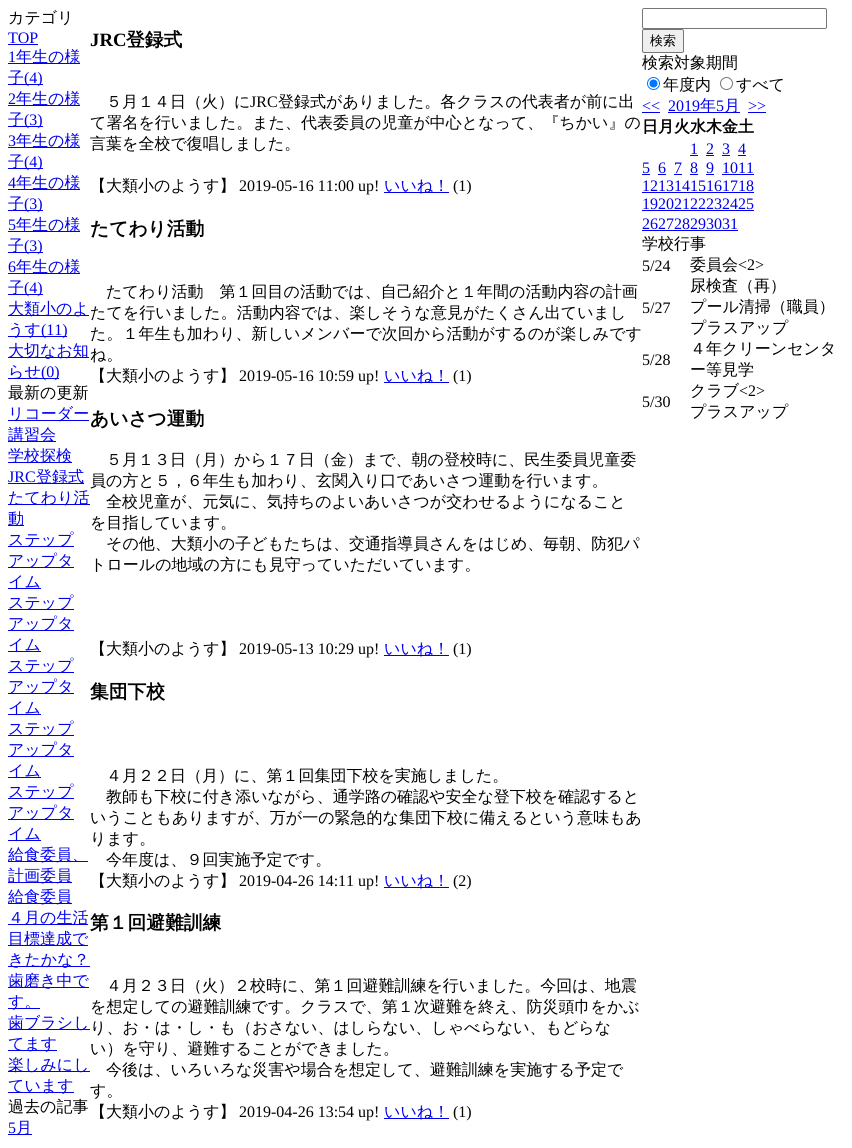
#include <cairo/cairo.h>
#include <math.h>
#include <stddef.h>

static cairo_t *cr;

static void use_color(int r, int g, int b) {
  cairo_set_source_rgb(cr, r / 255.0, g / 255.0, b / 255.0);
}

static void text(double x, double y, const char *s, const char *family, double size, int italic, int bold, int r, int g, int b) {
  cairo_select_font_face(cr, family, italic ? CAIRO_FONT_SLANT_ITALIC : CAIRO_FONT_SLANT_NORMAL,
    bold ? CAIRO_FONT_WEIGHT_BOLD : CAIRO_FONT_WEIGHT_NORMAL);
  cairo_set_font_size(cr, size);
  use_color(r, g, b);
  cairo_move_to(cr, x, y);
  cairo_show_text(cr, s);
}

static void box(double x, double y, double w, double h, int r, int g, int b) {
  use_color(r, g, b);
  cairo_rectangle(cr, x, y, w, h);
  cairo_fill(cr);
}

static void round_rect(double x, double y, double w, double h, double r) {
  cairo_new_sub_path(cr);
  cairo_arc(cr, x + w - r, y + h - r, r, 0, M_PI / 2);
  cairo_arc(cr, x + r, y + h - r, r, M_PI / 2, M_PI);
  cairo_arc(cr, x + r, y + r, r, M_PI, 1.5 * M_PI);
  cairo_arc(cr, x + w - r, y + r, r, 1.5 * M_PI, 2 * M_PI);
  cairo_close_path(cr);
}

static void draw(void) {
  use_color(255, 255, 255);
  cairo_paint(cr);
  box(8, 44, 30, 1, 0, 0, 238);
  box(8, 63, 72, 1, 0, 0, 238);
  box(8, 84, 35, 1, 0, 0, 238);
  box(8, 105, 72, 1, 0, 0, 238);
  box(8, 126, 35, 1, 0, 0, 238);
  box(8, 147, 72, 1, 0, 0, 238);
  box(8, 168, 35, 1, 0, 0, 238);
  box(8, 189, 72, 1, 0, 0, 238);
  box(8, 210, 35, 1, 0, 0, 238);
  box(8, 231, 72, 1, 0, 0, 238);
  box(8, 252, 35, 1, 0, 0, 238);
  box(8, 273, 72, 1, 0, 0, 238);
  box(8, 294, 35, 1, 0, 0, 238);
  box(8, 315, 81, 1, 0, 0, 238);
  box(8, 336, 59, 1, 0, 0, 238);
  box(8, 357, 81, 1, 0, 0, 238);
  box(8, 378, 51, 1, 0, 0, 238);
  box(8, 420, 81, 1, 0, 0, 238);
  box(8, 441, 48, 1, 0, 0, 238);
  box(8, 462, 64, 1, 0, 0, 238);
  box(8, 483, 76, 1, 0, 0, 238);
  box(8, 504, 82, 1, 0, 0, 238);
  box(8, 525, 16, 1, 0, 0, 238);
  box(8, 546, 66, 1, 0, 0, 238);
  box(8, 567, 66, 1, 0, 0, 238);
  box(8, 588, 33, 1, 0, 0, 238);
  box(8, 609, 66, 1, 0, 0, 238);
  box(8, 630, 66, 1, 0, 0, 238);
  box(8, 651, 33, 1, 0, 0, 238);
  box(8, 672, 66, 1, 0, 0, 238);
  box(8, 693, 66, 1, 0, 0, 238);
  box(8, 714, 33, 1, 0, 0, 238);
  box(8, 735, 66, 1, 0, 0, 238);
  box(8, 756, 66, 1, 0, 0, 238);
  box(8, 777, 33, 1, 0, 0, 238);
  box(8, 798, 66, 1, 0, 0, 238);
  box(8, 819, 66, 1, 0, 0, 238);
  box(8, 840, 33, 1, 0, 0, 238);
  box(8, 861, 80, 1, 0, 0, 238);
  box(8, 882, 64, 1, 0, 0, 238);
  box(8, 903, 64, 1, 0, 0, 238);
  box(8, 924, 80, 1, 0, 0, 238);
  box(8, 945, 80, 1, 0, 0, 238);
  box(8, 966, 82, 1, 0, 0, 238);
  box(8, 987, 81, 1, 0, 0, 238);
  box(8, 1008, 32, 1, 0, 0, 238);
  box(8, 1029, 82, 1, 0, 0, 238);
  box(8, 1050, 49, 1, 0, 0, 238);
  box(8, 1071, 82, 1, 0, 0, 238);
  box(8, 1092, 66, 1, 0, 0, 238);
  box(8, 1134, 24, 1, 0, 0, 238);
  box(384, 192, 65, 1, 0, 0, 238);
  box(384, 382, 65, 1, 0, 0, 238);
  box(384, 655, 65, 1, 0, 0, 238);
  box(384, 887, 65, 1, 0, 0, 238);
  box(384, 1118, 65, 1, 0, 0, 238);
  round_rect(642.5, 8.5, 184, 20, 1.5);
  use_color(118, 118, 118);
  cairo_set_line_width(cr, 1);
  cairo_stroke(cr);
  use_color(239, 239, 239);
  round_rect(642.5, 29.5, 41, 23, 1.5);
  cairo_fill_preserve(cr);
  use_color(118, 118, 118);
  cairo_stroke(cr);
  cairo_arc(cr, 653.5, 83.5, 6, 0, 2 * M_PI);
  use_color(0, 117, 255);
  cairo_stroke(cr);
  cairo_arc(cr, 653.5, 83.5, 4, 0, 2 * M_PI);
  cairo_fill(cr);
  cairo_arc(cr, 726.5, 83.5, 6, 0, 2 * M_PI);
  use_color(118, 118, 118);
  cairo_stroke(cr);
  box(642, 112, 18, 1, 0, 0, 238);
  box(668, 112, 72, 1, 0, 0, 238);
  box(748, 112, 18, 1, 0, 0, 238);
  box(690, 155, 8, 1, 0, 0, 238);
  box(706, 155, 8, 1, 0, 0, 238);
  box(722, 155, 8, 1, 0, 0, 238);
  box(738, 155, 8, 1, 0, 0, 238);
  box(642, 174, 8, 1, 0, 0, 238);
  box(658, 174, 8, 1, 0, 0, 238);
  box(674, 174, 8, 1, 0, 0, 238);
  box(690, 174, 8, 1, 0, 0, 238);
  box(706, 174, 8, 1, 0, 0, 238);
  box(722, 174, 32, 1, 0, 0, 238);
  box(642, 192, 112, 1, 0, 0, 238);
  box(642, 210, 112, 1, 0, 0, 238);
  box(642, 230, 96, 1, 0, 0, 238);
  text(8, 23, "カテゴリ", "WenQuanYi Zen Hei Medium", 16, 0, 0, 0, 0, 0);
  text(8, 43, "TOP", "Liberation Serif", 16, 0, 0, 0, 0, 238);
  text(8, 62, "1", "Liberation Serif", 16, 0, 0, 0, 0, 238);
  text(16, 62, "年生の様", "WenQuanYi Zen Hei Medium", 16, 0, 0, 0, 0, 238);
  text(8, 83, "子", "WenQuanYi Zen Hei Medium", 16, 0, 0, 0, 0, 238);
  text(24, 83, "(4)", "Liberation Serif", 16, 0, 0, 0, 0, 238);
  text(8, 104, "2", "Liberation Serif", 16, 0, 0, 0, 0, 238);
  text(16, 104, "年生の様", "WenQuanYi Zen Hei Medium", 16, 0, 0, 0, 0, 238);
  text(8, 125, "子", "WenQuanYi Zen Hei Medium", 16, 0, 0, 0, 0, 238);
  text(24, 125, "(3)", "Liberation Serif", 16, 0, 0, 0, 0, 238);
  text(8, 146, "3", "Liberation Serif", 16, 0, 0, 0, 0, 238);
  text(16, 146, "年生の様", "WenQuanYi Zen Hei Medium", 16, 0, 0, 0, 0, 238);
  text(8, 167, "子", "WenQuanYi Zen Hei Medium", 16, 0, 0, 0, 0, 238);
  text(24, 167, "(4)", "Liberation Serif", 16, 0, 0, 0, 0, 238);
  text(8, 188, "4", "Liberation Serif", 16, 0, 0, 0, 0, 238);
  text(16, 188, "年生の様", "WenQuanYi Zen Hei Medium", 16, 0, 0, 0, 0, 238);
  text(8, 209, "子", "WenQuanYi Zen Hei Medium", 16, 0, 0, 0, 0, 238);
  text(24, 209, "(3)", "Liberation Serif", 16, 0, 0, 0, 0, 238);
  text(8, 230, "5", "Liberation Serif", 16, 0, 0, 0, 0, 238);
  text(16, 230, "年生の様", "WenQuanYi Zen Hei Medium", 16, 0, 0, 0, 0, 238);
  text(8, 251, "子", "WenQuanYi Zen Hei Medium", 16, 0, 0, 0, 0, 238);
  text(24, 251, "(3)", "Liberation Serif", 16, 0, 0, 0, 0, 238);
  text(8, 272, "6", "Liberation Serif", 16, 0, 0, 0, 0, 238);
  text(16, 272, "年生の様", "WenQuanYi Zen Hei Medium", 16, 0, 0, 0, 0, 238);
  text(8, 293, "子", "WenQuanYi Zen Hei Medium", 16, 0, 0, 0, 0, 238);
  text(24, 293, "(4)", "Liberation Serif", 16, 0, 0, 0, 0, 238);
  text(8, 314, "大類小のよ", "WenQuanYi Zen Hei Medium", 16, 0, 0, 0, 0, 238);
  text(8, 335, "うす", "WenQuanYi Zen Hei Medium", 16, 0, 0, 0, 0, 238);
  text(41, 335, "(11)", "Liberation Serif", 16, 0, 0, 0, 0, 238);
  text(8, 356, "大切なお知", "WenQuanYi Zen Hei Medium", 16, 0, 0, 0, 0, 238);
  text(8, 377, "らせ", "WenQuanYi Zen Hei Medium", 16, 0, 0, 0, 0, 238);
  text(41, 377, "(0)", "Liberation Serif", 16, 0, 0, 0, 0, 238);
  text(8, 398, "最新の更新", "WenQuanYi Zen Hei Medium", 16, 0, 0, 0, 0, 0);
  text(8, 419, "リコーダー", "WenQuanYi Zen Hei Medium", 16, 0, 0, 0, 0, 238);
  text(8, 440, "講習会", "WenQuanYi Zen Hei Medium", 16, 0, 0, 0, 0, 238);
  text(8, 461, "学校探検", "WenQuanYi Zen Hei Medium", 16, 0, 0, 0, 0, 238);
  text(8, 482, "JRC", "Liberation Serif", 16, 0, 0, 0, 0, 238);
  text(36, 482, "登録式", "WenQuanYi Zen Hei Medium", 16, 0, 0, 0, 0, 238);
  text(8, 503, "たてわり活", "WenQuanYi Zen Hei Medium", 16, 0, 0, 0, 0, 238);
  text(8, 524, "動", "WenQuanYi Zen Hei Medium", 16, 0, 0, 0, 0, 238);
  text(8, 545, "ステップ", "WenQuanYi Zen Hei Medium", 16, 0, 0, 0, 0, 238);
  text(8, 566, "アップタ", "WenQuanYi Zen Hei Medium", 16, 0, 0, 0, 0, 238);
  text(8, 587, "イム", "WenQuanYi Zen Hei Medium", 16, 0, 0, 0, 0, 238);
  text(8, 608, "ステップ", "WenQuanYi Zen Hei Medium", 16, 0, 0, 0, 0, 238);
  text(8, 629, "アップタ", "WenQuanYi Zen Hei Medium", 16, 0, 0, 0, 0, 238);
  text(8, 650, "イム", "WenQuanYi Zen Hei Medium", 16, 0, 0, 0, 0, 238);
  text(8, 671, "ステップ", "WenQuanYi Zen Hei Medium", 16, 0, 0, 0, 0, 238);
  text(8, 692, "アップタ", "WenQuanYi Zen Hei Medium", 16, 0, 0, 0, 0, 238);
  text(8, 713, "イム", "WenQuanYi Zen Hei Medium", 16, 0, 0, 0, 0, 238);
  text(8, 734, "ステップ", "WenQuanYi Zen Hei Medium", 16, 0, 0, 0, 0, 238);
  text(8, 755, "アップタ", "WenQuanYi Zen Hei Medium", 16, 0, 0, 0, 0, 238);
  text(8, 776, "イム", "WenQuanYi Zen Hei Medium", 16, 0, 0, 0, 0, 238);
  text(8, 797, "ステップ", "WenQuanYi Zen Hei Medium", 16, 0, 0, 0, 0, 238);
  text(8, 818, "アップタ", "WenQuanYi Zen Hei Medium", 16, 0, 0, 0, 0, 238);
  text(8, 839, "イム", "WenQuanYi Zen Hei Medium", 16, 0, 0, 0, 0, 238);
  text(8, 860, "給食委員、", "WenQuanYi Zen Hei Medium", 16, 0, 0, 0, 0, 238);
  text(8, 881, "計画委員", "WenQuanYi Zen Hei Medium", 16, 0, 0, 0, 0, 238);
  text(8, 902, "給食委員", "WenQuanYi Zen Hei Medium", 16, 0, 0, 0, 0, 238);
  text(8, 923, "４月の生活", "WenQuanYi Zen Hei Medium", 16, 0, 0, 0, 0, 238);
  text(8, 944, "目標達成で", "WenQuanYi Zen Hei Medium", 16, 0, 0, 0, 0, 238);
  text(8, 965, "きたかな？", "WenQuanYi Zen Hei Medium", 16, 0, 0, 0, 0, 238);
  text(8, 986, "歯磨き中で", "WenQuanYi Zen Hei Medium", 16, 0, 0, 0, 0, 238);
  text(8, 1007, "す。", "WenQuanYi Zen Hei Medium", 16, 0, 0, 0, 0, 238);
  text(8, 1028, "歯ブラシし", "WenQuanYi Zen Hei Medium", 16, 0, 0, 0, 0, 238);
  text(8, 1049, "てます", "WenQuanYi Zen Hei Medium", 16, 0, 0, 0, 0, 238);
  text(8, 1070, "楽しみにし", "WenQuanYi Zen Hei Medium", 16, 0, 0, 0, 0, 238);
  text(8, 1091, "ています", "WenQuanYi Zen Hei Medium", 16, 0, 0, 0, 0, 238);
  text(8, 1112, "過去の記事", "WenQuanYi Zen Hei Medium", 16, 0, 0, 0, 0, 0);
  text(8, 1133, "5", "Liberation Serif", 16, 0, 0, 0, 0, 238);
  text(16, 1133, "月", "WenQuanYi Zen Hei Medium", 16, 0, 0, 0, 0, 238);
  text(90, 46, "JRC", "Liberation Serif", 18.75, 0, 1, 0, 0, 0);
  text(126, 46, "登録式", "WenQuanYi Zen Hei", 18.75, 0, 1, 0, 0, 0);
  text(106, 107, "５月１４日（火）に", "WenQuanYi Zen Hei Medium", 16, 0, 0, 0, 0, 0);
  text(250, 107, "JRC", "Liberation Serif", 16, 0, 0, 0, 0, 0);
  text(278, 107, "登録式がありました。各クラスの代表者が前に出", "WenQuanYi Zen Hei Medium", 16, 0, 0, 0, 0, 0);
  text(90, 128, "て署名を行いました。また、代表委員の児童が中心となって、『ちかい』の", "WenQuanYi Zen Hei Medium", 16, 0, 0, 0, 0, 0);
  text(90, 149, "言葉を全校で復唱しました。", "WenQuanYi Zen Hei Medium", 16, 0, 0, 0, 0, 0);
  text(90, 191, "【大類小のようす】", "WenQuanYi Zen Hei Medium", 16, 0, 0, 0, 0, 0);
  text(239, 191, "2019-05-16 11:00 up!", "Liberation Serif", 16, 0, 0, 0, 0, 0);
  text(384, 191, "いいね！", "WenQuanYi Zen Hei Medium", 16, 0, 0, 0, 0, 238);
  text(453, 191, "(1)", "Liberation Serif", 16, 0, 0, 0, 0, 0);
  text(90, 235, "たてわり活動", "WenQuanYi Zen Hei", 18.75, 0, 1, 0, 0, 0);
  text(106, 297, "たてわり活動　第１回目の活動では、自己紹介と１年間の活動内容の計画", "WenQuanYi Zen Hei Medium", 16, 0, 0, 0, 0, 0);
  text(90, 318, "たてを行いました。活動内容では、楽しそうな意見がたくさん出ていまし", "WenQuanYi Zen Hei Medium", 16, 0, 0, 0, 0, 0);
  text(90, 339, "た。１年生も加わり、新しいメンバーで次回から活動がするのが楽しみです", "WenQuanYi Zen Hei Medium", 16, 0, 0, 0, 0, 0);
  text(90, 360, "ね。", "WenQuanYi Zen Hei Medium", 16, 0, 0, 0, 0, 0);
  text(90, 381, "【大類小のようす】", "WenQuanYi Zen Hei Medium", 16, 0, 0, 0, 0, 0);
  text(239, 381, "2019-05-16 10:59 up!", "Liberation Serif", 16, 0, 0, 0, 0, 0);
  text(384, 381, "いいね！", "WenQuanYi Zen Hei Medium", 16, 0, 0, 0, 0, 238);
  text(453, 381, "(1)", "Liberation Serif", 16, 0, 0, 0, 0, 0);
  text(90, 425, "あいさつ運動", "WenQuanYi Zen Hei", 18.75, 0, 1, 0, 0, 0);
  text(106, 465, "５月１３日（月）から１７日（金）まで、朝の登校時に、民生委員児童委", "WenQuanYi Zen Hei Medium", 16, 0, 0, 0, 0, 0);
  text(90, 486, "員の方と５，６年生も加わり、玄関入り口であいさつ運動を行います。", "WenQuanYi Zen Hei Medium", 16, 0, 0, 0, 0, 0);
  text(106, 507, "全校児童が、元気に、気持ちのよいあいさつが交わせるようになること", "WenQuanYi Zen Hei Medium", 16, 0, 0, 0, 0, 0);
  text(90, 528, "を目指しています。", "WenQuanYi Zen Hei Medium", 16, 0, 0, 0, 0, 0);
  text(106, 549, "その他、大類小の子どもたちは、交通指導員さんをはじめ、毎朝、防犯パ", "WenQuanYi Zen Hei Medium", 16, 0, 0, 0, 0, 0);
  text(90, 570, "トロールの地域の方にも見守っていただいています。", "WenQuanYi Zen Hei Medium", 16, 0, 0, 0, 0, 0);
  text(90, 654, "【大類小のようす】", "WenQuanYi Zen Hei Medium", 16, 0, 0, 0, 0, 0);
  text(239, 654, "2019-05-13 10:29 up!", "Liberation Serif", 16, 0, 0, 0, 0, 0);
  text(384, 654, "いいね！", "WenQuanYi Zen Hei Medium", 16, 0, 0, 0, 0, 238);
  text(453, 654, "(1)", "Liberation Serif", 16, 0, 0, 0, 0, 0);
  text(90, 698, "集団下校", "WenQuanYi Zen Hei", 18.75, 0, 1, 0, 0, 0);
  text(106, 781, "４月２２日（月）に、第１回集団下校を実施しました。", "WenQuanYi Zen Hei Medium", 16, 0, 0, 0, 0, 0);
  text(106, 802, "教師も下校に付き添いながら、通学路の確認や安全な登下校を確認すると", "WenQuanYi Zen Hei Medium", 16, 0, 0, 0, 0, 0);
  text(90, 823, "いうこともありますが、万が一の緊急的な集団下校に備えるという意味もあ", "WenQuanYi Zen Hei Medium", 16, 0, 0, 0, 0, 0);
  text(90, 844, "ります。", "WenQuanYi Zen Hei Medium", 16, 0, 0, 0, 0, 0);
  text(106, 865, "今年度は、９回実施予定です。", "WenQuanYi Zen Hei Medium", 16, 0, 0, 0, 0, 0);
  text(90, 886, "【大類小のようす】", "WenQuanYi Zen Hei Medium", 16, 0, 0, 0, 0, 0);
  text(239, 886, "2019-04-26 14:11 up!", "Liberation Serif", 16, 0, 0, 0, 0, 0);
  text(384, 886, "いいね！", "WenQuanYi Zen Hei Medium", 16, 0, 0, 0, 0, 238);
  text(453, 886, "(2)", "Liberation Serif", 16, 0, 0, 0, 0, 0);
  text(90, 929, "第１回避難訓練", "WenQuanYi Zen Hei", 18.75, 0, 1, 0, 0, 0);
  text(106, 991, "４月２３日（火）２校時に、第１回避難訓練を行いました。今回は、地震", "WenQuanYi Zen Hei Medium", 16, 0, 0, 0, 0, 0);
  text(90, 1012, "を想定しての避難訓練です。クラスで、第１次避難を終え、防災頭巾をかぶ", "WenQuanYi Zen Hei Medium", 16, 0, 0, 0, 0, 0);
  text(90, 1033, "り、お・は・し・も（おさない、はしらない、しゃべらない、もどらな", "WenQuanYi Zen Hei Medium", 16, 0, 0, 0, 0, 0);
  text(90, 1054, "い）を守り、避難することができました。", "WenQuanYi Zen Hei Medium", 16, 0, 0, 0, 0, 0);
  text(106, 1075, "今後は、いろいろな災害や場合を想定して、避難訓練を実施する予定で", "WenQuanYi Zen Hei Medium", 16, 0, 0, 0, 0, 0);
  text(90, 1096, "す。", "WenQuanYi Zen Hei Medium", 16, 0, 0, 0, 0, 0);
  text(90, 1117, "【大類小のようす】", "WenQuanYi Zen Hei Medium", 16, 0, 0, 0, 0, 0);
  text(239, 1117, "2019-04-26 13:54 up!", "Liberation Serif", 16, 0, 0, 0, 0, 0);
  text(384, 1117, "いいね！", "WenQuanYi Zen Hei Medium", 16, 0, 0, 0, 0, 238);
  text(453, 1117, "(1)", "Liberation Serif", 16, 0, 0, 0, 0, 0);
  text(650, 45, "検索", "WenQuanYi Zen Hei Medium", 13, 0, 0, 0, 0, 0);
  text(642, 68, "検索対象期間", "WenQuanYi Zen Hei Medium", 16, 0, 0, 0, 0, 0);
  text(663, 90, "年度内", "WenQuanYi Zen Hei Medium", 16, 0, 0, 0, 0, 0);
  text(736, 90, "すべて", "WenQuanYi Zen Hei Medium", 16, 0, 0, 0, 0, 0);
  text(642, 111, "<<", "Liberation Serif", 16, 0, 0, 0, 0, 238);
  text(668, 111, "2019", "Liberation Serif", 16, 0, 0, 0, 0, 238);
  text(700, 111, "年", "WenQuanYi Zen Hei Medium", 16, 0, 0, 0, 0, 238);
  text(716, 111, "5", "Liberation Serif", 16, 0, 0, 0, 0, 238);
  text(724, 111, "月", "WenQuanYi Zen Hei Medium", 16, 0, 0, 0, 0, 238);
  text(748, 111, ">>", "Liberation Serif", 16, 0, 0, 0, 0, 238);
  text(642, 132, "日月火水木金土", "WenQuanYi Zen Hei", 16, 0, 1, 0, 0, 0);
  text(690, 154, "1", "Liberation Serif", 16, 0, 0, 0, 0, 238);
  text(706, 154, "2", "Liberation Serif", 16, 0, 0, 0, 0, 238);
  text(722, 154, "3", "Liberation Serif", 16, 0, 0, 0, 0, 238);
  text(738, 154, "4", "Liberation Serif", 16, 0, 0, 0, 0, 238);
  text(642, 173, "5", "Liberation Serif", 16, 0, 0, 0, 0, 238);
  text(658, 173, "6", "Liberation Serif", 16, 0, 0, 0, 0, 238);
  text(674, 173, "7", "Liberation Serif", 16, 0, 0, 0, 0, 238);
  text(690, 173, "8", "Liberation Serif", 16, 0, 0, 0, 0, 238);
  text(706, 173, "9", "Liberation Serif", 16, 0, 0, 0, 0, 238);
  text(722, 173, "1011", "Liberation Serif", 16, 0, 0, 0, 0, 238);
  text(642, 191, "12131415161718", "Liberation Serif", 16, 0, 0, 0, 0, 238);
  text(642, 209, "19202122232425", "Liberation Serif", 16, 0, 0, 0, 0, 238);
  text(642, 229, "262728293031", "Liberation Serif", 16, 0, 0, 0, 0, 238);
  text(642, 249, "学校行事", "WenQuanYi Zen Hei Medium", 16, 0, 0, 0, 0, 0);
  text(642, 271, "5/24", "Liberation Serif", 16, 0, 0, 0, 0, 0);
  text(690, 270, "委員会", "WenQuanYi Zen Hei Medium", 16, 0, 0, 0, 0, 0);
  text(738, 270, "<2>", "Liberation Serif", 16, 0, 0, 0, 0, 0);
  text(690, 291, "尿検査（再）", "WenQuanYi Zen Hei Medium", 16, 0, 0, 0, 0, 0);
  text(642, 313, "5/27", "Liberation Serif", 16, 0, 0, 0, 0, 0);
  text(690, 312, "プール清掃（職員）", "WenQuanYi Zen Hei Medium", 16, 0, 0, 0, 0, 0);
  text(690, 333, "プラスアップ", "WenQuanYi Zen Hei Medium", 16, 0, 0, 0, 0, 0);
  text(642, 365, "5/28", "Liberation Serif", 16, 0, 0, 0, 0, 0);
  text(690, 354, "４年クリーンセンタ", "WenQuanYi Zen Hei Medium", 16, 0, 0, 0, 0, 0);
  text(690, 375, "ー等見学", "WenQuanYi Zen Hei Medium", 16, 0, 0, 0, 0, 0);
  text(690, 396, "クラブ", "WenQuanYi Zen Hei Medium", 16, 0, 0, 0, 0, 0);
  text(739, 396, "<2>", "Liberation Serif", 16, 0, 0, 0, 0, 0);
  text(642, 407, "5/30", "Liberation Serif", 16, 0, 0, 0, 0, 0);
  text(690, 417, "プラスアップ", "WenQuanYi Zen Hei Medium", 16, 0, 0, 0, 0, 0);
}

int main(void) {
  cairo_surface_t *surface = cairo_image_surface_create(CAIRO_FORMAT_RGB24, 852, 1148);
  cr = cairo_create(surface);
  cairo_font_options_t *options = cairo_font_options_create();
  cairo_font_options_set_hint_metrics(options, CAIRO_HINT_METRICS_OFF);
  cairo_font_options_set_hint_style(options, CAIRO_HINT_STYLE_NONE);
  cairo_set_font_options(cr, options);
  cairo_set_miter_limit(cr, 4);
  draw();
  cairo_surface_write_to_png(surface, "out.png");
  cairo_font_options_destroy(options);
  cairo_destroy(cr);
  cairo_surface_destroy(surface);
  return 0;
}
